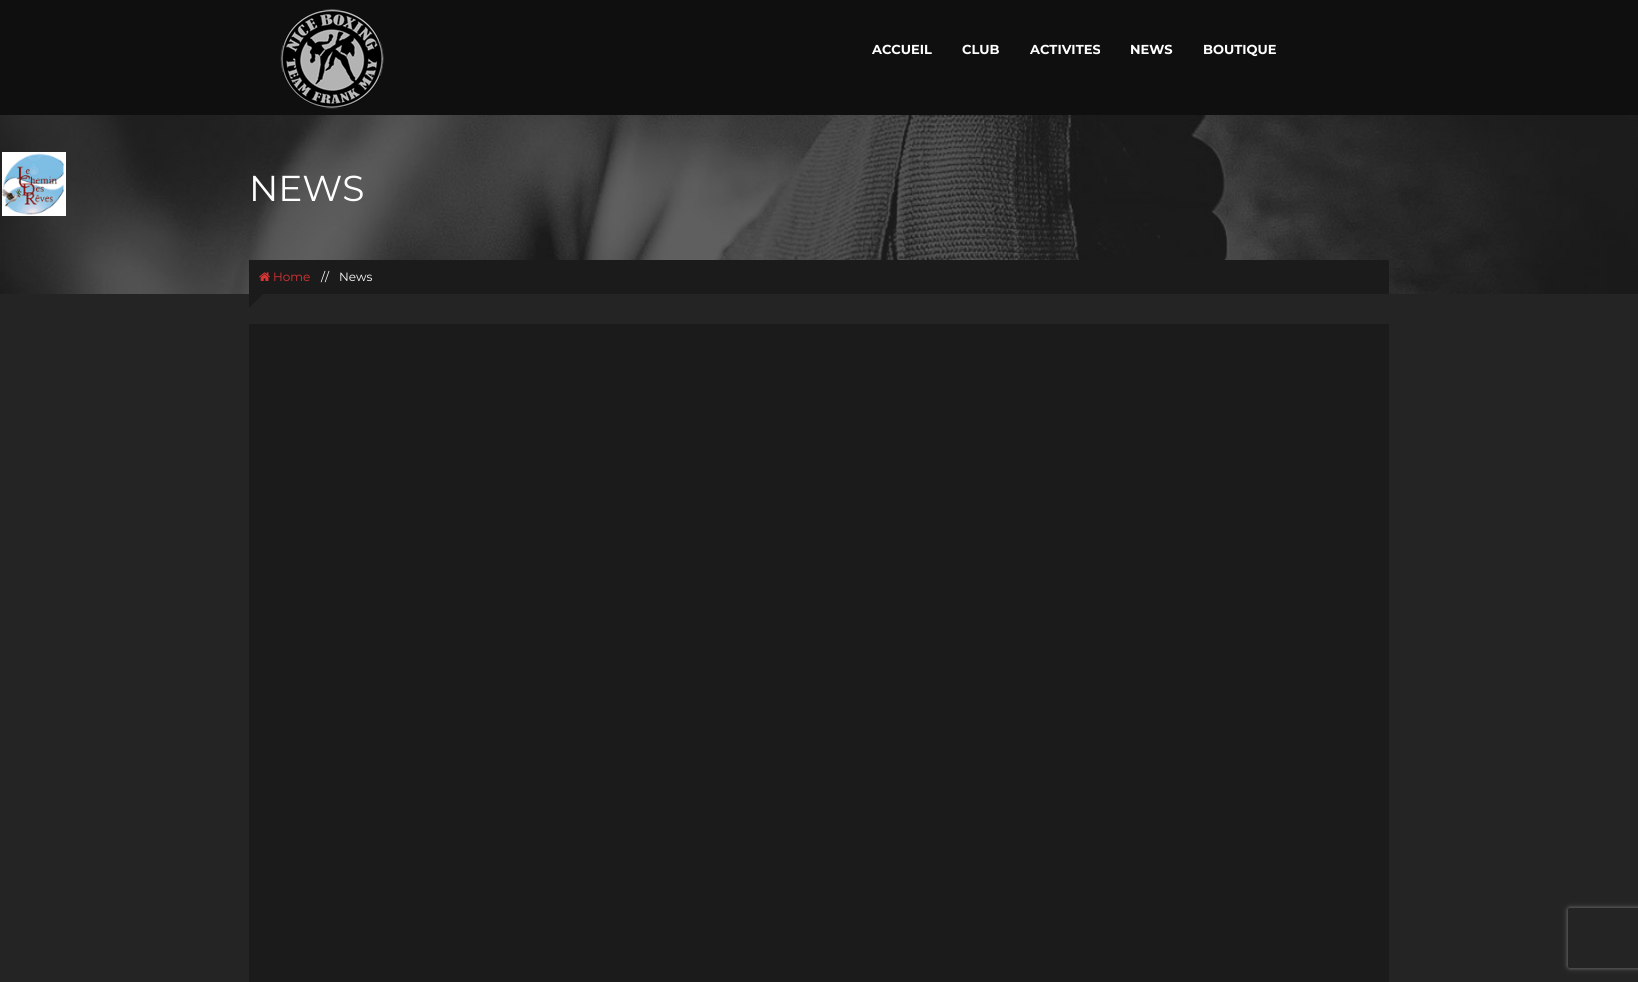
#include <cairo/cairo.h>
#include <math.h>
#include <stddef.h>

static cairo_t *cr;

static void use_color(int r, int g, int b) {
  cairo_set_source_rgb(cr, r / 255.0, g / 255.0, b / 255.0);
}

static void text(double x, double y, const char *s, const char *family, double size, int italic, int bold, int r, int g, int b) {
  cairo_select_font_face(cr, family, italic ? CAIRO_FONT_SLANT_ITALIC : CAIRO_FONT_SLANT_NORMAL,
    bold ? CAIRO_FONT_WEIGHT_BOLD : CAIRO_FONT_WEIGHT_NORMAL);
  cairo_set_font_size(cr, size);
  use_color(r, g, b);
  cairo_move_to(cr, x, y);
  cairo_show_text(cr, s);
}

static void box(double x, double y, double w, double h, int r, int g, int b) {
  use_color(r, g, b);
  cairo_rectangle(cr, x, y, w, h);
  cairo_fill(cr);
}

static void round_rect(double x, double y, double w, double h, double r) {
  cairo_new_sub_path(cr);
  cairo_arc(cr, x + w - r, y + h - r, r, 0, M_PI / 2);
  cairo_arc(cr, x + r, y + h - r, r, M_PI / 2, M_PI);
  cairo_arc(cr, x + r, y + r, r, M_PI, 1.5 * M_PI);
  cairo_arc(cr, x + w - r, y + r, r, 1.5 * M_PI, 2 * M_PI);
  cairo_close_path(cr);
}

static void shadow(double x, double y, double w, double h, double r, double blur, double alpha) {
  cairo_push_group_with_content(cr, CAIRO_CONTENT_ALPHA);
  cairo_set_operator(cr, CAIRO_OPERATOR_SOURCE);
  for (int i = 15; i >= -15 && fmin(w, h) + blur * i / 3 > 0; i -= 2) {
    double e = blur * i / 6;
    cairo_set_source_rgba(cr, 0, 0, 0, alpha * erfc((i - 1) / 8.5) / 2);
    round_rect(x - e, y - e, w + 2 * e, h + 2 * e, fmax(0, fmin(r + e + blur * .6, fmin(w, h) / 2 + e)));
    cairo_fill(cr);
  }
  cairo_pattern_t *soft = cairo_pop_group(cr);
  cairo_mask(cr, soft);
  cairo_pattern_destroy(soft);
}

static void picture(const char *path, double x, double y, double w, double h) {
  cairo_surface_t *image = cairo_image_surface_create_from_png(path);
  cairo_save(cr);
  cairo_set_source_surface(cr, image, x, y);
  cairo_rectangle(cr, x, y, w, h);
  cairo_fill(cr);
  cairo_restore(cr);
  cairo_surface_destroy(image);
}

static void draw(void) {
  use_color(36, 36, 36);
  cairo_paint(cr);
  picture("img_03.png", 0, 115, 1638, 179);
  box(2, 152, 64, 64, 255, 255, 255);
  picture("img_01.png", 2, 153, 62, 62);
  box(0, 0, 1638, 115, 15, 15, 15);
  picture("img_02.png", 280, 9, 104, 100);
  box(249, 260, 1140, 34, 27, 27, 27);
  picture("img_04.png", 259, 272, 11, 9);
  cairo_new_path(cr);
  cairo_move_to(cr, 249, 308);
  cairo_line_to(cr, 249, 280);
  cairo_line_to(cr, 263, 294);
  cairo_close_path(cr);
  cairo_fill(cr);
  box(249, 324, 1140, 658, 27, 27, 27);
  cairo_save(cr);
  cairo_set_fill_rule(cr, CAIRO_FILL_RULE_EVEN_ODD);
  cairo_new_path(cr);
  cairo_move_to(cr, 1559, 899);
  cairo_line_to(cr, 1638, 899);
  cairo_line_to(cr, 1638, 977);
  cairo_line_to(cr, 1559, 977);
  cairo_close_path(cr);
  cairo_move_to(cr, 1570, 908);
  cairo_line_to(cr, 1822, 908);
  cairo_curve_to(cr, 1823, 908, 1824, 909, 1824, 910);
  cairo_line_to(cr, 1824, 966);
  cairo_curve_to(cr, 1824, 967, 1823, 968, 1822, 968);
  cairo_line_to(cr, 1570, 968);
  cairo_curve_to(cr, 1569, 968, 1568, 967, 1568, 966);
  cairo_line_to(cr, 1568, 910);
  cairo_curve_to(cr, 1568, 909, 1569, 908, 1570, 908);
  cairo_close_path(cr);
  cairo_clip(cr);
  use_color(128, 128, 128);
  shadow(1568, 908, 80, 60, 2, 2.5, 1);
  cairo_restore(cr);
  text(872, 54, "ACCUEIL", "Montserrat", 13, 0, 1, 255, 255, 255);
  text(962, 54, "CLUB", "Montserrat", 13, 0, 1, 255, 255, 255);
  text(1030, 54, "ACTIVITES", "Montserrat", 13, 0, 1, 255, 255, 255);
  text(1130, 54, "NEWS", "Montserrat", 13, 0, 1, 255, 255, 255);
  text(1203, 54, "BOUTIQUE", "Montserrat", 13, 0, 1, 255, 255, 255);
  text(249, 201, "NEWS", "Montserrat", 36, 0, 0, 255, 255, 255);
  text(273, 281, "Home", "Montserrat", 12, 0, 0, 221, 51, 51);
  text(321, 281, "//", "Montserrat", 12, 0, 0, 255, 255, 255);
  text(339, 281, "News", "Montserrat", 12, 0, 0, 255, 255, 255);
}

int main(void) {
  cairo_surface_t *surface = cairo_image_surface_create(CAIRO_FORMAT_RGB24, 1638, 982);
  cr = cairo_create(surface);
  cairo_font_options_t *options = cairo_font_options_create();
  cairo_font_options_set_hint_metrics(options, CAIRO_HINT_METRICS_OFF);
  cairo_font_options_set_hint_style(options, CAIRO_HINT_STYLE_NONE);
  cairo_set_font_options(cr, options);
  cairo_set_miter_limit(cr, 4);
  draw();
  cairo_surface_write_to_png(surface, "out.png");
  cairo_font_options_destroy(options);
  cairo_destroy(cr);
  cairo_surface_destroy(surface);
  return 0;
}
